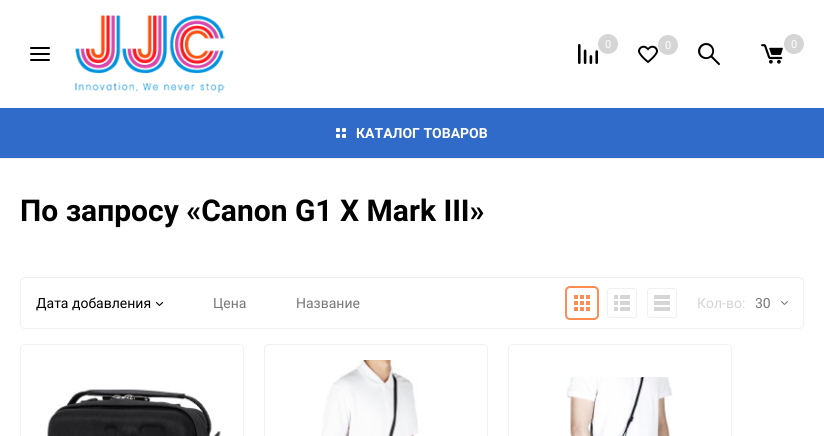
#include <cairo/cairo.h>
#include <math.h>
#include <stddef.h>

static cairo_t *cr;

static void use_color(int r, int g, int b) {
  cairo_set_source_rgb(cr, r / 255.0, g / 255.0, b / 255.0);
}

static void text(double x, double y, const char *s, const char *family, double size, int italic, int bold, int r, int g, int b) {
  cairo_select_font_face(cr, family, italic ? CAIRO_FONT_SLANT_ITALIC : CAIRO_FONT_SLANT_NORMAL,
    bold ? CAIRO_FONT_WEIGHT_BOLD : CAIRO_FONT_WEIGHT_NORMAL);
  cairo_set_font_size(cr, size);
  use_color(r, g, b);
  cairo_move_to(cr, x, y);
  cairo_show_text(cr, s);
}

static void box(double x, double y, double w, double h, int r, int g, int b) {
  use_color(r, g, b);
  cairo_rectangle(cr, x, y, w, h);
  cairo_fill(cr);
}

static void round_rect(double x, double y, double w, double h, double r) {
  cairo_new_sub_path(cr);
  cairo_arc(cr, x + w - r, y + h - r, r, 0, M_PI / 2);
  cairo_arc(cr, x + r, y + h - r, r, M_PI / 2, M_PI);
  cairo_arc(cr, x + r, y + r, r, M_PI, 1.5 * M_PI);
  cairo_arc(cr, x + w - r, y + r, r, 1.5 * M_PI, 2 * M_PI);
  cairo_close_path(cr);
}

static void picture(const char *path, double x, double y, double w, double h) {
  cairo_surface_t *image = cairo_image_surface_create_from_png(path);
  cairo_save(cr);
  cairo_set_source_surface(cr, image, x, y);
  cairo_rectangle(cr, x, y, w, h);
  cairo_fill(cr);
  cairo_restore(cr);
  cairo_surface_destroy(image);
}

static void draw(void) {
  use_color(255, 255, 255);
  cairo_paint(cr);
  box(0, 158, 824, 1, 240, 240, 240);
  use_color(0, 0, 0);
  round_rect(30, 53, 20, 2, 1);
  cairo_fill(cr);
  round_rect(30, 47, 20, 2, 1);
  cairo_fill(cr);
  round_rect(30, 59, 20, 2, 1);
  cairo_fill(cr);
  picture("img_01.png", 75, 15, 150, 78);
  picture("img_02.png", 578, 44, 20, 20);
  use_color(213, 213, 213);
  cairo_arc(cr, 608, 44, 10, 0, 2 * M_PI);
  cairo_fill(cr);
  picture("img_03.png", 638, 45, 20, 19);
  cairo_arc(cr, 668, 45, 10, 0, 2 * M_PI);
  cairo_fill(cr);
  picture("img_04.png", 698, 43, 22, 22);
  picture("img_05.png", 761, 44, 22, 20);
  cairo_arc(cr, 794, 44, 10, 0, 2 * M_PI);
  cairo_fill(cr);
  box(0, 108, 824, 50, 48, 107, 201);
  picture("img_06.png", 336, 128, 10, 10);
  round_rect(20.5, 277.5, 783, 51, 4.5);
  use_color(240, 240, 240);
  cairo_set_line_width(cr, 1);
  cairo_stroke(cr);
  picture("img_07.png", 156, 302, 7, 4);
  round_rect(566, 287, 32, 32, 4);
  use_color(255, 140, 82);
  cairo_set_line_width(cr, 2);
  cairo_stroke(cr);
  picture("img_08.png", 574, 295, 16, 16);
  round_rect(607.5, 288.5, 29, 29, 2.5);
  use_color(240, 240, 240);
  cairo_set_line_width(cr, 1);
  cairo_stroke(cr);
  picture("img_09.png", 614, 295, 16, 16);
  round_rect(647.5, 288.5, 29, 29, 2.5);
  cairo_stroke(cr);
  picture("img_10.png", 654, 295, 16, 16);
  picture("img_11.png", 781, 301, 7, 4);
  round_rect(20.5, 344.5, 223, 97, 4.5);
  cairo_stroke(cr);
  picture("img_12.png", 47, 389, 174, 47);
  round_rect(264.5, 344.5, 223, 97, 4.5);
  cairo_stroke(cr);
  picture("img_13.png", 321, 360, 98, 76);
  round_rect(508.5, 344.5, 223, 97, 4.5);
  cairo_stroke(cr);
  picture("img_14.png", 566, 377, 107, 59);
  text(605, 48, "0", "Roboto", 11, 0, 0, 255, 255, 255);
  text(665, 49, "0", "Roboto", 11, 0, 0, 255, 255, 255);
  text(791, 48, "0", "Roboto", 11, 0, 0, 255, 255, 255);
  text(356, 138, "КАТАЛОГ ТОВАРОВ", "Roboto", 14, 0, 1, 255, 255, 255);
  text(20, 221, "По запросу «Canon G1 X Mark III»", "Roboto", 30, 0, 1, 0, 0, 0);
  text(36, 308, "Дата добавления", "Roboto", 14, 0, 0, 0, 0, 0);
  text(213, 308, "Цена", "Roboto", 14, 0, 0, 119, 119, 119);
  text(296, 308, "Название", "Roboto", 14, 0, 0, 119, 119, 119);
  text(697, 308, "Кол-во:", "Roboto", 14, 0, 0, 213, 213, 213);
  text(755, 308, "30", "Roboto", 14, 0, 0, 119, 119, 119);
}

int main(void) {
  cairo_surface_t *surface = cairo_image_surface_create(CAIRO_FORMAT_RGB24, 824, 436);
  cr = cairo_create(surface);
  cairo_font_options_t *options = cairo_font_options_create();
  cairo_font_options_set_hint_metrics(options, CAIRO_HINT_METRICS_OFF);
  cairo_font_options_set_hint_style(options, CAIRO_HINT_STYLE_NONE);
  cairo_set_font_options(cr, options);
  cairo_set_miter_limit(cr, 4);
  draw();
  cairo_surface_write_to_png(surface, "out.png");
  cairo_font_options_destroy(options);
  cairo_destroy(cr);
  cairo_surface_destroy(surface);
  return 0;
}
